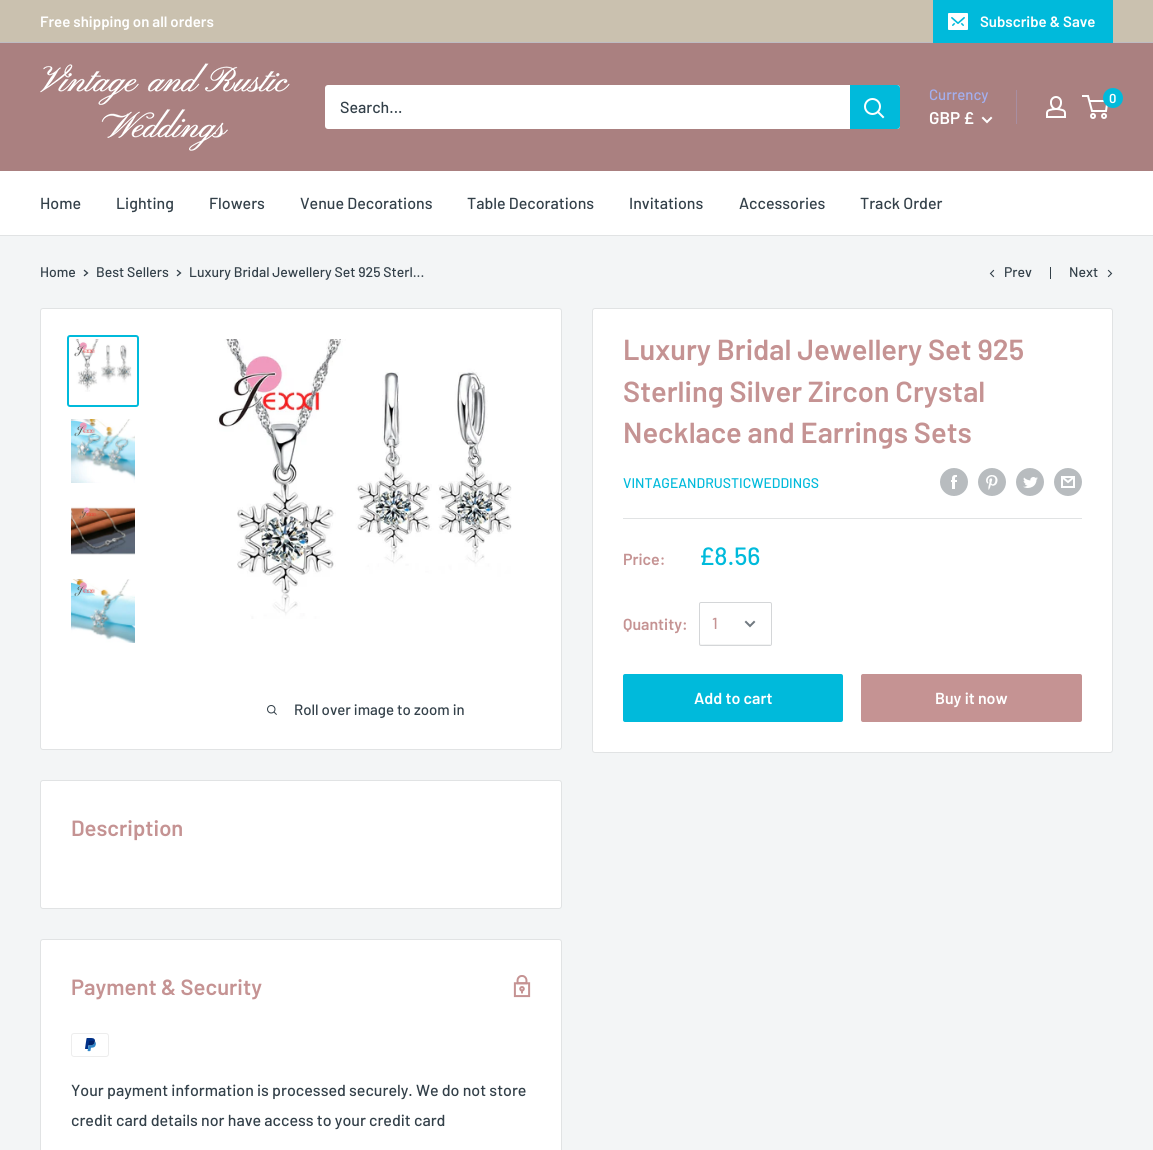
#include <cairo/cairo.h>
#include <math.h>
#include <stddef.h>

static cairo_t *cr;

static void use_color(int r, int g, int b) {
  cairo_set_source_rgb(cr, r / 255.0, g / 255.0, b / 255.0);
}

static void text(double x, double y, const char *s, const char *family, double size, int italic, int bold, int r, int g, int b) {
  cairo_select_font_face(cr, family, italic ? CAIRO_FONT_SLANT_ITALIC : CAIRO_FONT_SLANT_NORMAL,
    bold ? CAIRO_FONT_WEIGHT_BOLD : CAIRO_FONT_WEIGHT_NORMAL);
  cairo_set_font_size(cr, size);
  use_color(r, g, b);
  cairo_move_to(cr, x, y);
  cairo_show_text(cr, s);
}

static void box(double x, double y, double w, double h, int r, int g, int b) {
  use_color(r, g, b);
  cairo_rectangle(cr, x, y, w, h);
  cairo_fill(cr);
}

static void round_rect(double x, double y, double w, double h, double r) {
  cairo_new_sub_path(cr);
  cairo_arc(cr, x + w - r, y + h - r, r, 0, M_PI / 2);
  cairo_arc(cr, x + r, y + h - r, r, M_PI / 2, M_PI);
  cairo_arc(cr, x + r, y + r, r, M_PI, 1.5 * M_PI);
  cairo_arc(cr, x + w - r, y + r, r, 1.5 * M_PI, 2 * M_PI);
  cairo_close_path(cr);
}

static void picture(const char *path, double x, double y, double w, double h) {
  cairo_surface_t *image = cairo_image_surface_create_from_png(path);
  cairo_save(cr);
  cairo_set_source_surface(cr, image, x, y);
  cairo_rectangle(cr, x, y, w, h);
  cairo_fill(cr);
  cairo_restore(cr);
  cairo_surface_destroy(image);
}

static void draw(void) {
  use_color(243, 245, 246);
  cairo_paint(cr);
  box(0, 0, 1153, 42, 202, 193, 175);
  box(0, 42, 1153, 1, 190, 188, 194);
  box(933, 0, 180, 43, 0, 186, 219);
  picture("img_01.png", 948, 13, 20, 17);
  box(0, 43, 1153, 128, 170, 128, 128);
  picture("img_02.png", 40, 63, 250, 88);
  use_color(255, 255, 255);
  round_rect(325, 85, 575, 44, 3);
  cairo_fill(cr);
  use_color(0, 186, 219);
  cairo_new_path(cr);
  cairo_move_to(cr, 850, 85);
  cairo_line_to(cr, 897, 85);
  cairo_curve_to(cr, 898.5, 85, 900, 86.5, 900, 88);
  cairo_line_to(cr, 900, 126);
  cairo_curve_to(cr, 900, 127.5, 898.5, 129, 897, 129);
  cairo_line_to(cr, 850, 129);
  cairo_close_path(cr);
  cairo_fill(cr);
  cairo_new_path(cr);
  cairo_move_to(cr, 883, 117);
  cairo_line_to(cr, 878, 112);
  use_color(255, 255, 255);
  cairo_set_line_cap(cr, CAIRO_LINE_CAP_SQUARE);
  cairo_stroke(cr);
  cairo_arc(cr, 872.5, 106.5, 7.5, 0, 2 * M_PI);
  cairo_set_line_cap(cr, CAIRO_LINE_CAP_BUTT);
  cairo_stroke(cr);
  cairo_new_path(cr);
  cairo_move_to(cr, 991, 118);
  cairo_line_to(cr, 987, 122);
  cairo_line_to(cr, 983, 118);
  cairo_set_line_cap(cr, CAIRO_LINE_CAP_SQUARE);
  cairo_stroke(cr);
  box(1016, 90, 1, 34, 168, 142, 161);
  picture("img_03.png", 1046, 96, 20, 22);
  cairo_arc(cr, 1093, 116, 2, 0, 2 * M_PI);
  use_color(255, 255, 255);
  cairo_set_line_cap(cr, CAIRO_LINE_CAP_BUTT);
  cairo_stroke(cr);
  cairo_arc(cr, 1104, 116, 2, 0, 2 * M_PI);
  cairo_stroke(cr);
  cairo_new_path(cr);
  cairo_move_to(cr, 1089.5, 101);
  cairo_line_to(cr, 1107.5, 101);
  cairo_line_to(cr, 1106, 111);
  cairo_line_to(cr, 1092, 111);
  cairo_line_to(cr, 1088, 96);
  cairo_line_to(cr, 1082, 96);
  cairo_stroke(cr);
  use_color(0, 186, 219);
  cairo_arc(cr, 1113, 98, 10, 0, 2 * M_PI);
  cairo_fill(cr);
  box(0, 171, 1153, 64, 255, 255, 255);
  box(0, 235, 1153, 1, 225, 227, 228);
  cairo_new_path(cr);
  cairo_move_to(cr, 84.5, 270.5);
  cairo_line_to(cr, 87.5, 273);
  cairo_line_to(cr, 84.5, 275.5);
  use_color(51, 64, 73);
  cairo_set_line_width(cr, 1.3);
  cairo_set_line_cap(cr, CAIRO_LINE_CAP_SQUARE);
  cairo_stroke(cr);
  cairo_new_path(cr);
  cairo_move_to(cr, 177.5, 270.5);
  cairo_line_to(cr, 180.5, 273);
  cairo_line_to(cr, 177.5, 275.5);
  cairo_stroke(cr);
  cairo_new_path(cr);
  cairo_move_to(cr, 993.5, 276.5);
  cairo_line_to(cr, 990.5, 273.5);
  cairo_line_to(cr, 993.5, 270.5);
  cairo_set_line_width(cr, 1.1);
  cairo_stroke(cr);
  box(1050, 267, 1, 12, 51, 64, 73);
  cairo_new_path(cr);
  cairo_move_to(cr, 1108.5, 270.5);
  cairo_line_to(cr, 1111.5, 273.5);
  cairo_line_to(cr, 1108.5, 276.5);
  cairo_stroke(cr);
  use_color(255, 255, 255);
  round_rect(592.5, 308.5, 520, 444, 2.5);
  cairo_fill_preserve(cr);
  use_color(225, 227, 228);
  cairo_set_line_width(cr, 1);
  cairo_set_line_cap(cr, CAIRO_LINE_CAP_BUTT);
  cairo_stroke(cr);
  picture("img_04.png", 940, 468, 28, 28);
  picture("img_05.png", 978, 468, 28, 28);
  picture("img_06.png", 1016, 468, 28, 28);
  picture("img_07.png", 1054, 468, 28, 28);
  box(623, 518, 459, 1, 225, 227, 228);
  use_color(242, 243, 243);
  cairo_new_path(cr);
  cairo_move_to(cr, 700, 643);
  cairo_curve_to(cr, 700, 644, 700, 645, 701, 645);
  cairo_line_to(cr, 770, 645);
  cairo_line_to(cr, 771, 643);
  cairo_line_to(cr, 770, 644);
  cairo_line_to(cr, 705, 644);
  cairo_curve_to(cr, 704, 644, 701, 645, 700, 643);
  cairo_close_path(cr);
  cairo_fill(cr);
  round_rect(699.5, 602.5, 72, 43, 1.5);
  use_color(212, 214, 216);
  cairo_stroke(cr);
  cairo_new_path(cr);
  cairo_move_to(cr, 754, 622);
  cairo_line_to(cr, 750, 626);
  cairo_line_to(cr, 746, 622);
  use_color(112, 121, 128);
  cairo_set_line_width(cr, 2);
  cairo_set_line_cap(cr, CAIRO_LINE_CAP_SQUARE);
  cairo_stroke(cr);
  use_color(0, 186, 219);
  round_rect(623, 674, 220, 48, 2);
  cairo_fill(cr);
  use_color(197, 147, 147);
  round_rect(861, 674, 221, 48, 2);
  cairo_fill(cr);
  use_color(255, 255, 255);
  round_rect(40.5, 308.5, 521, 441, 2.5);
  cairo_fill_preserve(cr);
  use_color(225, 227, 228);
  cairo_set_line_width(cr, 1);
  cairo_set_line_cap(cr, CAIRO_LINE_CAP_BUTT);
  cairo_stroke(cr);
  round_rect(68, 336, 70, 70, 2);
  use_color(0, 186, 219);
  cairo_set_line_width(cr, 2);
  cairo_stroke(cr);
  picture("img_08.png", 74, 339, 58, 53);
  picture("img_09.png", 71, 419, 64, 64);
  picture("img_10.png", 71, 506, 64, 49);
  picture("img_11.png", 71, 579, 64, 64);
  picture("img_12.png", 217, 339, 295, 280);
  picture("img_13.png", 267, 705, 10, 10);
  use_color(255, 255, 255);
  round_rect(40.5, 780.5, 521, 128, 2.5);
  cairo_fill_preserve(cr);
  use_color(225, 227, 228);
  cairo_set_line_width(cr, 1);
  cairo_stroke(cr);
  use_color(255, 255, 255);
  round_rect(40.5, 939.5, 521, 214, 2.5);
  cairo_fill_preserve(cr);
  use_color(225, 227, 228);
  cairo_stroke(cr);
  picture("img_14.png", 513, 975, 18, 23);
  picture("img_15.png", 71, 1033, 38, 24);
  text(40, 27, "Free shipping on all orders", "Barlow SemiBold", 15, 0, 0, 255, 255, 255);
  text(980, 27, "Subscribe & Save", "Barlow SemiBold", 15, 0, 0, 255, 255, 255);
  text(340, 113, "Search...", "Barlow Medium", 16, 0, 0, 51, 64, 73);
  text(929, 100, "Currency", "Barlow Medium", 15, 0, 0, 163, 175, 239);
  text(929, 124, "GBP £", "Barlow SemiBold", 17, 0, 0, 255, 255, 255);
  text(1109, 103, "0", "Barlow SemiBold", 13, 0, 0, 255, 255, 255);
  text(40, 209, "Home", "Barlow Medium", 16, 0, 0, 51, 64, 73);
  text(116, 209, "Lighting", "Barlow Medium", 16, 0, 0, 51, 64, 73);
  text(209, 209, "Flowers", "Barlow Medium", 16, 0, 0, 51, 64, 73);
  text(300, 209, "Venue Decorations", "Barlow Medium", 16, 0, 0, 51, 64, 73);
  text(467, 209, "Table Decorations", "Barlow Medium", 16, 0, 0, 51, 64, 73);
  text(629, 209, "Invitations", "Barlow Medium", 16, 0, 0, 51, 64, 73);
  text(739, 209, "Accessories", "Barlow Medium", 16, 0, 0, 51, 64, 73);
  text(860, 209, "Track Order", "Barlow Medium", 16, 0, 0, 51, 64, 73);
  text(40, 277, "Home", "Barlow Medium", 14, 0, 0, 51, 64, 73);
  text(96, 277, "Best Sellers", "Barlow Medium", 14, 0, 0, 51, 64, 73);
  text(189, 277, "Luxury Bridal Jewellery Set 925 Sterl...", "Barlow Medium", 14, 0, 0, 51, 64, 73);
  text(1004, 277, "Prev", "Barlow Medium", 14, 0, 0, 51, 64, 73);
  text(1069, 277, "Next", "Barlow Medium", 14, 0, 0, 51, 64, 73);
  text(623, 360, "Luxury Bridal Jewellery Set 925", "Barlow SemiBold", 29, 0, 0, 197, 147, 147);
  text(623, 402, "Sterling Silver Zircon Crystal", "Barlow SemiBold", 29, 0, 0, 197, 147, 147);
  text(623, 443, "Necklace and Earrings Sets", "Barlow SemiBold", 29, 0, 0, 197, 147, 147);
  text(623, 488, "VINTAGEANDRUSTICWEDDINGS", "Barlow Medium", 14, 0, 0, 0, 186, 219);
  text(623, 565, "Price:", "Barlow SemiBold", 16, 0, 0, 197, 147, 147);
  text(699, 565, "£8.56", "Barlow Medium", 25, 0, 0, 0, 186, 219);
  text(623, 630, "Quantity:", "Barlow SemiBold", 16, 0, 0, 197, 147, 147);
  text(712, 629, "1", "Barlow Medium", 16, 0, 0, 197, 147, 147);
  text(694, 704, "Add to cart", "Barlow SemiBold", 16, 0, 0, 255, 255, 255);
  text(935, 704, "Buy it now", "Barlow SemiBold", 16, 0, 0, 255, 255, 255);
  text(294, 715, "Roll over image to zoom in", "Barlow Medium", 15, 0, 0, 51, 64, 73);
  text(71, 836, "Description", "Barlow SemiBold", 22, 0, 0, 197, 147, 147);
  text(71, 995, "Payment & Security", "Barlow SemiBold", 22, 0, 0, 197, 147, 147);
  text(71, 1096, "Your payment information is processed securely. We do not store", "Barlow Medium", 16, 0, 0, 51, 64, 73);
  text(71, 1126, "credit card details nor have access to your credit card", "Barlow Medium", 16, 0, 0, 51, 64, 73);
}

int main(void) {
  cairo_surface_t *surface = cairo_image_surface_create(CAIRO_FORMAT_RGB24, 1153, 1150);
  cr = cairo_create(surface);
  cairo_font_options_t *options = cairo_font_options_create();
  cairo_font_options_set_hint_metrics(options, CAIRO_HINT_METRICS_OFF);
  cairo_font_options_set_hint_style(options, CAIRO_HINT_STYLE_NONE);
  cairo_set_font_options(cr, options);
  cairo_set_miter_limit(cr, 4);
  draw();
  cairo_surface_write_to_png(surface, "out.png");
  cairo_font_options_destroy(options);
  cairo_destroy(cr);
  cairo_surface_destroy(surface);
  return 0;
}
